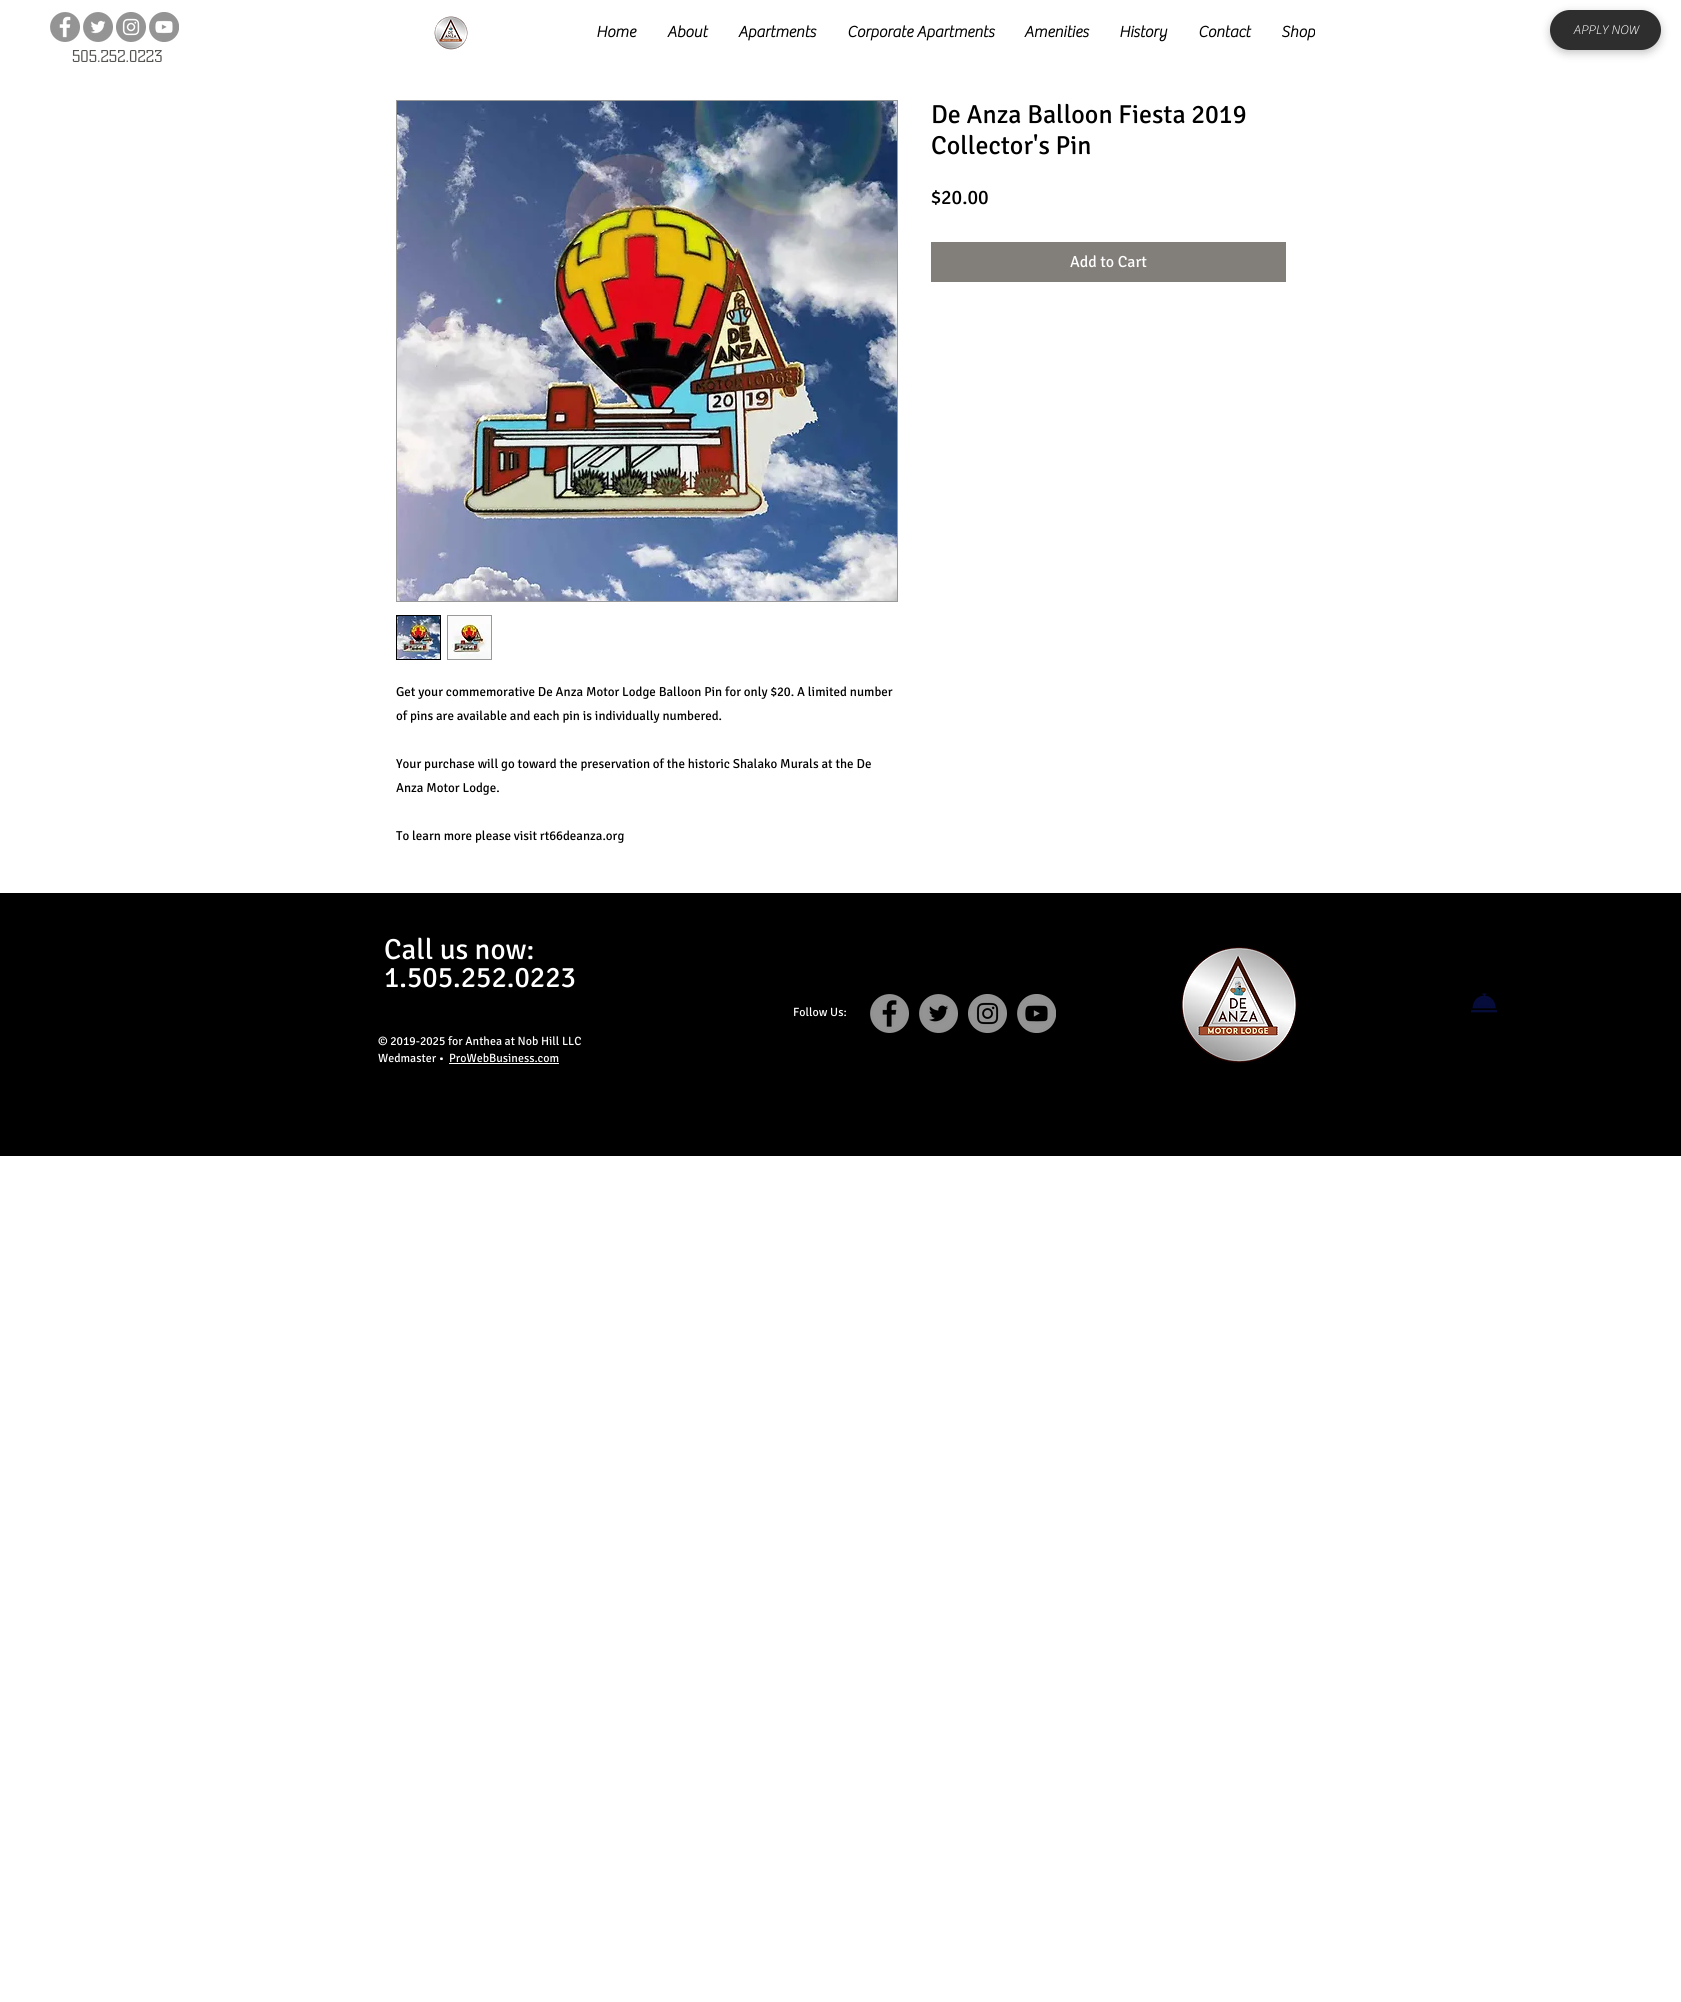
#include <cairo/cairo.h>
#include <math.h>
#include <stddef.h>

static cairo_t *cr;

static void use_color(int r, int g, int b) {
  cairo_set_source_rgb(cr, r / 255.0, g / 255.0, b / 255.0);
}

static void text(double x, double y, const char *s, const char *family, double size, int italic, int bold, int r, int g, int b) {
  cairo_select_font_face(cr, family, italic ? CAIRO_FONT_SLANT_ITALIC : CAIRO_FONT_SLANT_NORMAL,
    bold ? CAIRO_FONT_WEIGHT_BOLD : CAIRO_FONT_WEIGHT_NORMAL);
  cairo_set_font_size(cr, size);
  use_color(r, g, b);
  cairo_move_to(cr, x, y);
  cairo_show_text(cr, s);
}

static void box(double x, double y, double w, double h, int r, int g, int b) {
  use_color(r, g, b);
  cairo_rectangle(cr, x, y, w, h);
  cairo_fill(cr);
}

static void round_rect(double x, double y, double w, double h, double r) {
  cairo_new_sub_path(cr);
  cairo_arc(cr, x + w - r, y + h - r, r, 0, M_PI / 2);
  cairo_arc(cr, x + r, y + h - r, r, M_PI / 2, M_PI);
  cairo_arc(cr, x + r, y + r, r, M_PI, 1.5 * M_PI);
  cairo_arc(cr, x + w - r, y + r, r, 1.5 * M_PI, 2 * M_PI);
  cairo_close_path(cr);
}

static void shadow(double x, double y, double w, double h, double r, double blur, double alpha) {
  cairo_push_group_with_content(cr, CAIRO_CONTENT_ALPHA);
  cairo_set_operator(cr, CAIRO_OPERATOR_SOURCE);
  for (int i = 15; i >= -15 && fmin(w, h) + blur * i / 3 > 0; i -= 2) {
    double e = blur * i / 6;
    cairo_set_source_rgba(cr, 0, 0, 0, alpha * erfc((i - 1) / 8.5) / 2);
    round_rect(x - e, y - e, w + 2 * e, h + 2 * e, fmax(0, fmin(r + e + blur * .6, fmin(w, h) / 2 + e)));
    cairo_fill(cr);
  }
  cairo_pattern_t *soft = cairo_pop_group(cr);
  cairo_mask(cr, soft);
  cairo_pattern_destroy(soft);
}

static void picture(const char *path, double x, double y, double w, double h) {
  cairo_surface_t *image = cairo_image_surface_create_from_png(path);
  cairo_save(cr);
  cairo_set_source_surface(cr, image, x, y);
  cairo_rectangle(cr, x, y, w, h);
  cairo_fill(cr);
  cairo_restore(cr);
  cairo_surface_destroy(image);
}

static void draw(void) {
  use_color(255, 255, 255);
  cairo_paint(cr);
  picture("img_01.png", 434, 16, 34, 34);
  picture("img_02.png", 50, 12, 30, 30);
  picture("img_03.png", 83, 12, 30, 30);
  picture("img_04.png", 116, 12, 30, 30);
  picture("img_05.png", 149, 12, 30, 30);
  use_color(0, 0, 0);
  shadow(1550, 13, 111, 40, 20, 4.5, 0.23);
  use_color(46, 46, 46);
  round_rect(1550, 10, 111, 40, 20);
  cairo_fill(cr);
  box(931, 242, 355, 40, 130, 126, 122);
  cairo_rectangle(cr, 396.5, 100.5, 501, 501);
  use_color(153, 153, 153);
  cairo_set_line_width(cr, 1);
  cairo_stroke(cr);
  picture("img_06.png", 397, 101, 500, 500);
  cairo_rectangle(cr, 396.5, 615.5, 44, 44);
  use_color(0, 0, 0);
  cairo_stroke(cr);
  picture("img_07.png", 397, 616, 43, 43);
  box(447, 615, 45, 45, 153, 153, 153);
  picture("img_08.png", 448, 616, 43, 43);
  box(0, 893, 1681, 263, 0, 0, 0);
  picture("img_09.png", 870, 994, 39, 39);
  picture("img_10.png", 919, 994, 39, 39);
  picture("img_11.png", 968, 994, 39, 39);
  picture("img_12.png", 1017, 994, 39, 39);
  picture("img_13.png", 1181, 947, 116, 116);
  picture("img_14.png", 1471, 993, 26, 20);
  box(449, 1063, 110, 1, 255, 255, 255);
  text(596, 37, "Home", "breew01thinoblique", 16, 0, 1, 0, 0, 0);
  text(667, 37, "About", "breew01thinoblique", 16, 0, 1, 0, 0, 0);
  text(738, 37, "Apartments", "breew01thinoblique", 16, 0, 1, 0, 0, 0);
  text(847, 37, "Corporate Apartments", "breew01thinoblique", 16, 0, 1, 0, 0, 0);
  text(1024, 37, "Amenities", "breew01thinoblique", 16, 0, 1, 0, 0, 0);
  text(1119, 37, "History", "breew01thinoblique", 16, 0, 1, 0, 0, 0);
  text(1198, 37, "Contact", "breew01thinoblique", 16, 0, 1, 0, 0, 0);
  text(1281, 37, "Shop", "breew01thinoblique", 16, 0, 1, 0, 0, 0);
  text(72, 62, "505.252.0223", "Kelly Slab", 16, 0, 0, 86, 84, 81);
  text(1573, 34, "APPLY NOW", "breew01thinoblique Thin", 13, 0, 0, 255, 255, 255);
  text(931, 123, "De Anza Balloon Fiesta 2019", "Signika", 26, 0, 0, 0, 0, 0);
  text(931, 154, "Collector's Pin", "Signika", 26, 0, 0, 0, 0, 0);
  text(931, 204, "$20.00", "Signika", 20, 0, 0, 0, 0, 0);
  text(1070, 267, "Add to Cart", "Signika", 16, 0, 0, 255, 255, 255);
  text(396, 696, "Get your commemorative De Anza Motor Lodge Balloon Pin for only $20. A limited number", "Signika", 13, 0, 0, 0, 0, 0);
  text(396, 720, "of pins are available and each pin is individually numbered.", "Signika", 13, 0, 0, 0, 0, 0);
  text(396, 768, "Your purchase will go toward the preservation of the historic Shalako Murals at the De", "Signika", 13, 0, 0, 0, 0, 0);
  text(396, 792, "Anza Motor Lodge.", "Signika", 13, 0, 0, 0, 0, 0);
  text(396, 840, "To learn more please visit rt66deanza.org", "Signika", 13, 0, 0, 0, 0, 0);
  text(384, 959, "Call us now:", "Signika", 29, 0, 0, 255, 255, 255);
  text(384, 987, "1.505.252.0223", "Signika", 29, 0, 0, 255, 255, 255);
  text(793, 1016, "Follow Us:", "Signika", 12, 0, 0, 255, 255, 255);
  text(378, 1045, "© 2019-2025 for Anthea at Nob Hill LLC", "Signika", 12, 0, 0, 255, 255, 255);
  text(378, 1062, "Wedmaster •", "Signika", 12, 0, 0, 255, 255, 255);
  text(449, 1062, "ProWebBusiness.com", "Signika", 12, 0, 0, 255, 255, 255);
}

int main(void) {
  cairo_surface_t *surface = cairo_image_surface_create(CAIRO_FORMAT_RGB24, 1681, 2002);
  cr = cairo_create(surface);
  cairo_font_options_t *options = cairo_font_options_create();
  cairo_font_options_set_hint_metrics(options, CAIRO_HINT_METRICS_OFF);
  cairo_font_options_set_hint_style(options, CAIRO_HINT_STYLE_NONE);
  cairo_set_font_options(cr, options);
  cairo_set_miter_limit(cr, 4);
  draw();
  cairo_surface_write_to_png(surface, "out.png");
  cairo_font_options_destroy(options);
  cairo_destroy(cr);
  cairo_surface_destroy(surface);
  return 0;
}
